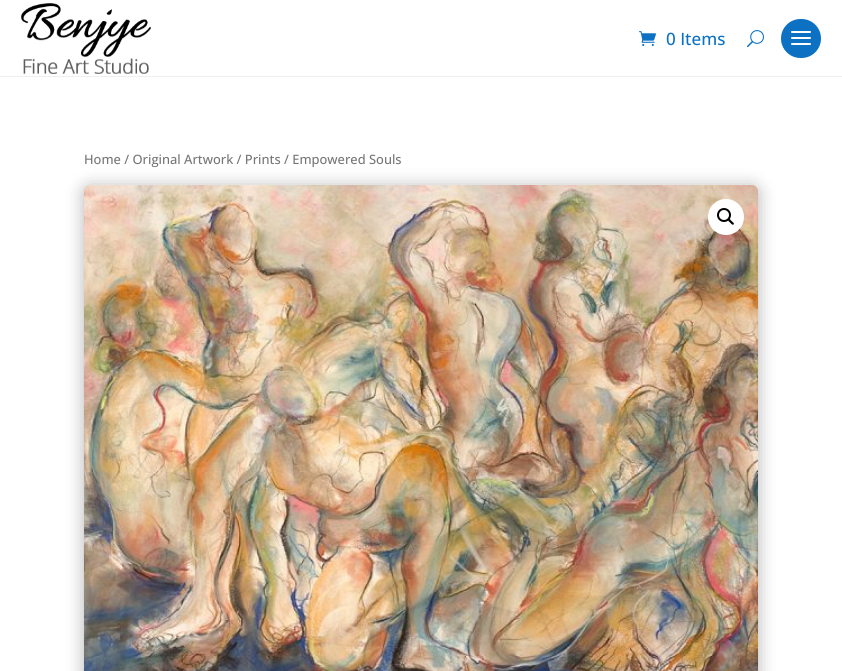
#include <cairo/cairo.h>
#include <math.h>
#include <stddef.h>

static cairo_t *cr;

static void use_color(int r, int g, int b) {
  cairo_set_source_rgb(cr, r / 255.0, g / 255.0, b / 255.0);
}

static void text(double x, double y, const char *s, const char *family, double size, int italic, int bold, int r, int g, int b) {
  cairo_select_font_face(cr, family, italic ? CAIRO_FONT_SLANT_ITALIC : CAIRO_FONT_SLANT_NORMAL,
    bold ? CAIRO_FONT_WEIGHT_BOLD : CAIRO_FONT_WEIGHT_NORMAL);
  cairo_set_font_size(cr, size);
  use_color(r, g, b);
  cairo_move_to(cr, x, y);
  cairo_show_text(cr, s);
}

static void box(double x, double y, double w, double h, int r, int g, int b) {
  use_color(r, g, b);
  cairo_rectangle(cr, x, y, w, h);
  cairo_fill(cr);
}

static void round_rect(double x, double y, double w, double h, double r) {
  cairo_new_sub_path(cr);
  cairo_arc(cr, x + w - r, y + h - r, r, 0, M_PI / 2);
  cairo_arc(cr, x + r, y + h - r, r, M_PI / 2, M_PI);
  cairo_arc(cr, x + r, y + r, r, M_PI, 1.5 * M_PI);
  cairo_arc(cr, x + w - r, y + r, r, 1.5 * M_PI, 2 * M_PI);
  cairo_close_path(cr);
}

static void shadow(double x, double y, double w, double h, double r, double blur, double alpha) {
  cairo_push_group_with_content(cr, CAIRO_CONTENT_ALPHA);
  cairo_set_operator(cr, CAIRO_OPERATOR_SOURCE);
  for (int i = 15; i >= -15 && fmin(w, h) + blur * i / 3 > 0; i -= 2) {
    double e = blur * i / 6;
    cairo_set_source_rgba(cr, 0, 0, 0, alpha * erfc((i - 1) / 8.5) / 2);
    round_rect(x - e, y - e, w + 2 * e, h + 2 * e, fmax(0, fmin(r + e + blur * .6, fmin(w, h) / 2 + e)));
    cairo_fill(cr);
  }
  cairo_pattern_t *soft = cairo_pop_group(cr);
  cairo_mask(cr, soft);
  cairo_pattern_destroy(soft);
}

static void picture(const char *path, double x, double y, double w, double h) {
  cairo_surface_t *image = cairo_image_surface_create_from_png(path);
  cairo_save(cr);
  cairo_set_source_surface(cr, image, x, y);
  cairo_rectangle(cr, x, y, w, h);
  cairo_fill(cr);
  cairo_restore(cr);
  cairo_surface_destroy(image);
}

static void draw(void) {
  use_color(255, 255, 255);
  cairo_paint(cr);
  box(0, 76, 842, 1, 239, 239, 239);
  picture("img_01.png", 21, 3, 130, 71);
  picture("img_02.png", 639, 31, 17, 15);
  picture("img_03.png", 747, 30, 17, 18);
  use_color(12, 113, 195);
  round_rect(781, 19, 40, 39, 19.5);
  cairo_fill(cr);
  use_color(255, 255, 255);
  round_rect(791, 43, 20, 2, 1);
  cairo_fill(cr);
  round_rect(791, 31, 20, 2, 1);
  cairo_fill(cr);
  round_rect(791, 37, 20, 2, 1);
  cairo_fill(cr);
  use_color(0, 0, 0);
  shadow(84, 187, 674, 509, 6, 9, 0.3);
  picture("img_04.png", 84, 185, 674, 486);
  use_color(255, 255, 255);
  cairo_arc(cr, 726, 217, 18, 0, 2 * M_PI);
  cairo_fill(cr);
  cairo_arc(cr, 724, 215, 6, 0, 2 * M_PI);
  use_color(0, 0, 0);
  cairo_stroke(cr);
  cairo_new_path(cr);
  cairo_move_to(cr, 728, 219);
  cairo_curve_to(cr, 729, 217.5, 731, 220.5, 731.5, 221);
  cairo_curve_to(cr, 732, 221.5, 735, 223.5, 733.5, 224.5);
  cairo_curve_to(cr, 732.5, 225.5, 730.5, 223, 730, 222.5);
  cairo_curve_to(cr, 729.5, 222, 727, 220, 728, 219);
  cairo_close_path(cr);
  cairo_fill(cr);
  text(666, 45, "0 Items", "Open Sans Medium", 17, 0, 0, 12, 113, 195);
  text(84, 164, "Home / Original Artwork / Prints / Empowered Souls", "Open Sans Medium", 12.9, 0, 0, 118, 118, 118);
}

int main(void) {
  cairo_surface_t *surface = cairo_image_surface_create(CAIRO_FORMAT_RGB24, 842, 671);
  cr = cairo_create(surface);
  cairo_font_options_t *options = cairo_font_options_create();
  cairo_font_options_set_hint_metrics(options, CAIRO_HINT_METRICS_OFF);
  cairo_font_options_set_hint_style(options, CAIRO_HINT_STYLE_NONE);
  cairo_set_font_options(cr, options);
  cairo_set_miter_limit(cr, 4);
  draw();
  cairo_surface_write_to_png(surface, "out.png");
  cairo_font_options_destroy(options);
  cairo_destroy(cr);
  cairo_surface_destroy(surface);
  return 0;
}
